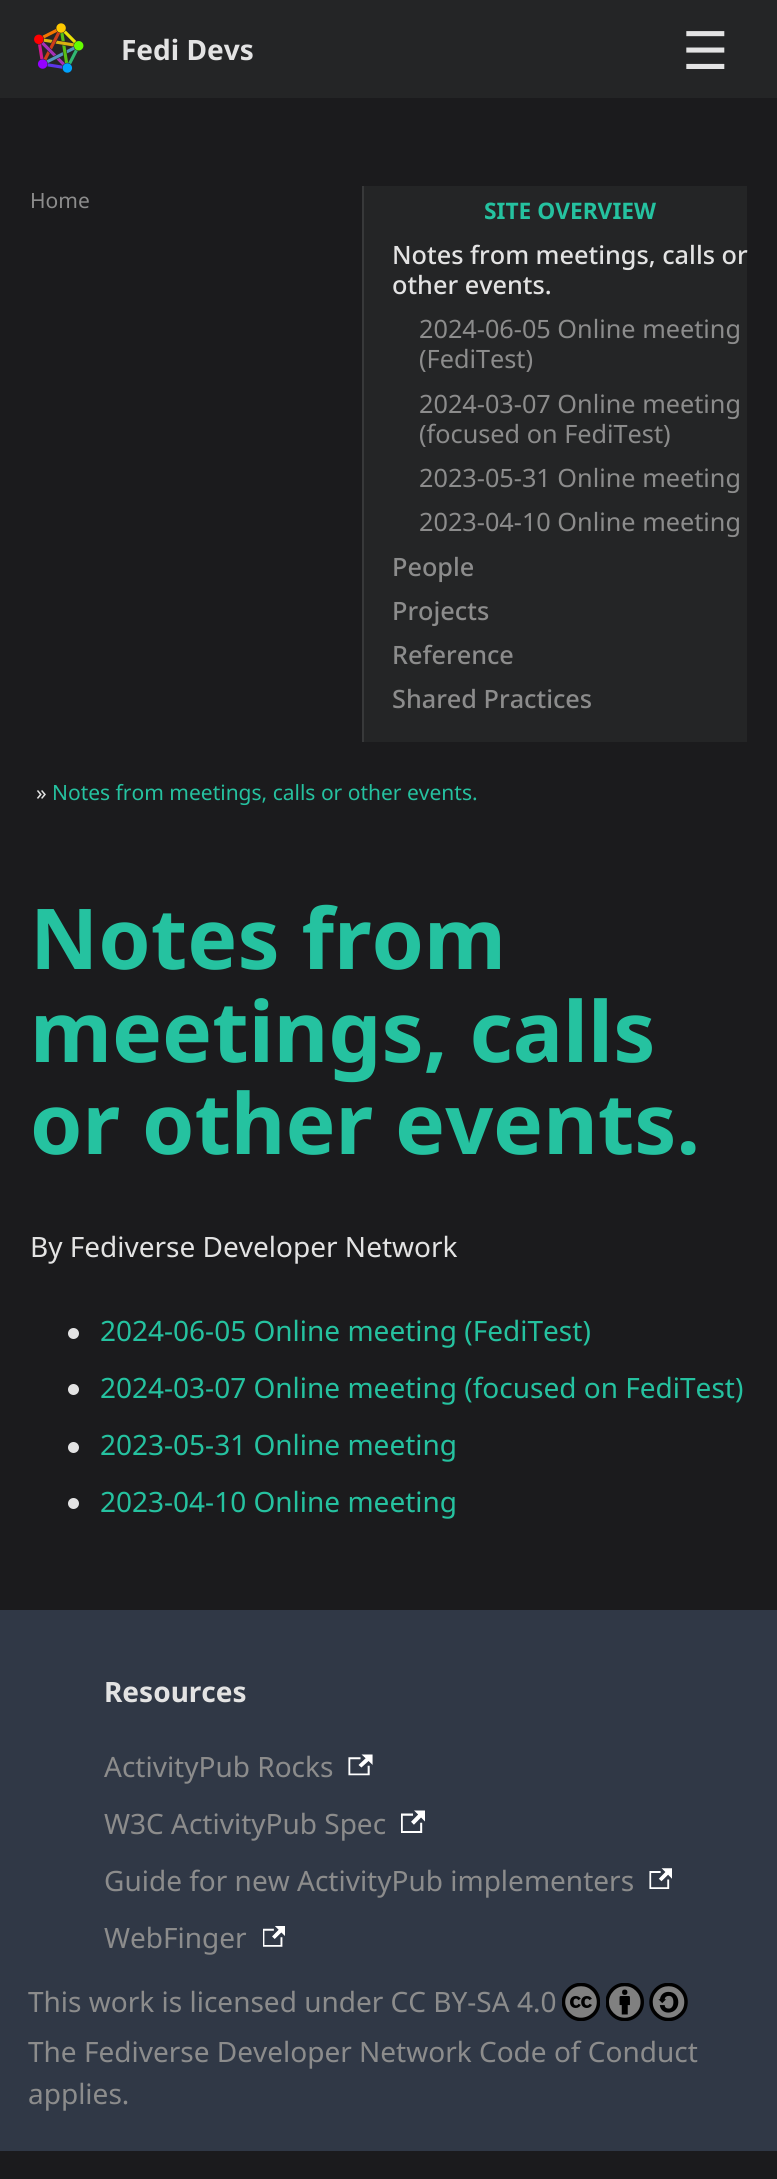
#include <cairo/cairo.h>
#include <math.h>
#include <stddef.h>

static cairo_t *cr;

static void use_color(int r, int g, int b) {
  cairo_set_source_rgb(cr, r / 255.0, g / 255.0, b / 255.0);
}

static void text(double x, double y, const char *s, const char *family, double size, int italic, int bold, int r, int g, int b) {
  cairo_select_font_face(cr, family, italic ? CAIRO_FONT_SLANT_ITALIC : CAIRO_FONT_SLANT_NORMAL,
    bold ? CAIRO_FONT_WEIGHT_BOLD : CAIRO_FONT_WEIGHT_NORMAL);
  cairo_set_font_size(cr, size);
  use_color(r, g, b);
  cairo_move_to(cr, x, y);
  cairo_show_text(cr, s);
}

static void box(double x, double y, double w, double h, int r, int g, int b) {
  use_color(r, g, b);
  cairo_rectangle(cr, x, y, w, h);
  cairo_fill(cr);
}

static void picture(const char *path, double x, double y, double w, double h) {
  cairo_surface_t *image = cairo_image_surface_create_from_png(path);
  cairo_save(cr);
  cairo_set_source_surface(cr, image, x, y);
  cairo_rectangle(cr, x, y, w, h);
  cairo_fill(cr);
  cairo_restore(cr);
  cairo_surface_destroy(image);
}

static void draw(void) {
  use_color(27, 27, 29);
  cairo_paint(cr);
  box(0, 0, 777, 98, 36, 37, 38);
  picture("img_01.png", 34, 23, 50, 50);
  box(364, 186, 383, 556, 36, 37, 38);
  box(362, 186, 2, 556, 56, 57, 58);
  use_color(227, 227, 227);
  cairo_arc(cr, 73.5, 1333.5, 5.5, 0, 2 * M_PI);
  cairo_fill(cr);
  cairo_arc(cr, 73.5, 1389.5, 5.5, 0, 2 * M_PI);
  cairo_fill(cr);
  cairo_arc(cr, 73.5, 1447.5, 5.5, 0, 2 * M_PI);
  cairo_fill(cr);
  cairo_arc(cr, 73.5, 1503.5, 5.5, 0, 2 * M_PI);
  cairo_fill(cr);
  box(0, 1610, 777, 541, 48, 56, 70);
  picture("img_02.png", 348, 1754, 25, 22);
  picture("img_03.png", 401, 1810, 24, 23);
  picture("img_04.png", 649, 1868, 23, 21);
  picture("img_05.png", 263, 1926, 22, 21);
  picture("img_06.png", 562, 1983, 38, 38);
  picture("img_07.png", 606, 1983, 38, 38);
  picture("img_08.png", 649, 1983, 39, 38);
  text(121, 60, "Fedi Devs", "Noto Sans", 28, 0, 1, 227, 227, 227);
  text(682, 69, "☰", "DejaVu Sans", 52, 0, 0, 227, 227, 227);
  text(30, 208, "Home", "Noto Sans", 21, 0, 0, 140, 140, 140);
  text(36, 800, "»", "Noto Sans", 21, 0, 0, 227, 227, 227);
  text(52, 800, "Notes from meetings, calls or other events.", "Noto Sans", 21, 0, 0, 37, 194, 160);
  text(484, 219, "SITE OVERVIEW", "Noto Sans", 22.75, 0, 1, 37, 194, 160);
  text(392, 264, "Notes from meetings, calls or", "Noto Sans Medium", 25.25, 0, 0, 227, 227, 227);
  text(392, 294, "other events.", "Noto Sans Medium", 25.25, 0, 0, 227, 227, 227);
  text(419, 338, "2024-06-05 Online meeting", "Noto Sans", 25.25, 0, 0, 140, 140, 140);
  text(419, 368, "(FediTest)", "Noto Sans", 25.25, 0, 0, 140, 140, 140);
  text(419, 413, "2024-03-07 Online meeting", "Noto Sans", 25.25, 0, 0, 140, 140, 140);
  text(419, 443, "(focused on FediTest)", "Noto Sans", 25.25, 0, 0, 140, 140, 140);
  text(419, 487, "2023-05-31 Online meeting", "Noto Sans", 25.25, 0, 0, 140, 140, 140);
  text(419, 531, "2023-04-10 Online meeting", "Noto Sans", 25.25, 0, 0, 140, 140, 140);
  text(392, 576, "People", "Noto Sans Medium", 25.25, 0, 0, 140, 140, 140);
  text(392, 620, "Projects", "Noto Sans Medium", 25.25, 0, 0, 140, 140, 140);
  text(392, 664, "Reference", "Noto Sans Medium", 25.25, 0, 0, 140, 140, 140);
  text(392, 708, "Shared Practices", "Noto Sans Medium", 25.25, 0, 0, 140, 140, 140);
  text(30, 969, "Notes from", "Noto Sans", 84, 0, 1, 37, 194, 160);
  text(30, 1062, "meetings, calls", "Noto Sans", 84, 0, 1, 37, 194, 160);
  text(30, 1154, "or other events.", "Noto Sans", 84, 0, 1, 37, 194, 160);
  text(30, 1257, "By Fediverse Developer Network", "Noto Sans", 28, 0, 0, 227, 227, 227);
  text(100, 1341, "2024-06-05 Online meeting (FediTest)", "Noto Sans", 28, 0, 0, 37, 194, 160);
  text(100, 1398, "2024-03-07 Online meeting (focused on FediTest)", "Noto Sans", 28, 0, 0, 37, 194, 160);
  text(100, 1455, "2023-05-31 Online meeting", "Noto Sans", 28, 0, 0, 37, 194, 160);
  text(100, 1512, "2023-04-10 Online meeting", "Noto Sans", 28, 0, 0, 37, 194, 160);
  text(104, 1702, "Resources", "Noto Sans", 28, 0, 1, 227, 227, 227);
  text(104, 1777, "ActivityPub Rocks", "Noto Sans", 28, 0, 0, 140, 140, 140);
  text(104, 1834, "W3C ActivityPub Spec", "Noto Sans", 28, 0, 0, 140, 140, 140);
  text(104, 1891, "Guide for new ActivityPub implementers", "Noto Sans", 28, 0, 0, 140, 140, 140);
  text(104, 1948, "WebFinger", "Noto Sans", 28, 0, 0, 140, 140, 140);
  text(28, 2012, "This work is licensed under CC BY-SA 4.0", "Noto Sans", 28, 0, 0, 140, 140, 140);
  text(28, 2062, "The Fediverse Developer Network Code of Conduct", "Noto Sans", 28, 0, 0, 140, 140, 140);
  text(28, 2104, "applies.", "Noto Sans", 28, 0, 0, 140, 140, 140);
}

int main(void) {
  cairo_surface_t *surface = cairo_image_surface_create(CAIRO_FORMAT_RGB24, 777, 2179);
  cr = cairo_create(surface);
  cairo_font_options_t *options = cairo_font_options_create();
  cairo_font_options_set_hint_metrics(options, CAIRO_HINT_METRICS_OFF);
  cairo_font_options_set_hint_style(options, CAIRO_HINT_STYLE_NONE);
  cairo_set_font_options(cr, options);
  cairo_set_miter_limit(cr, 4);
  draw();
  cairo_surface_write_to_png(surface, "out.png");
  cairo_font_options_destroy(options);
  cairo_destroy(cr);
  cairo_surface_destroy(surface);
  return 0;
}
